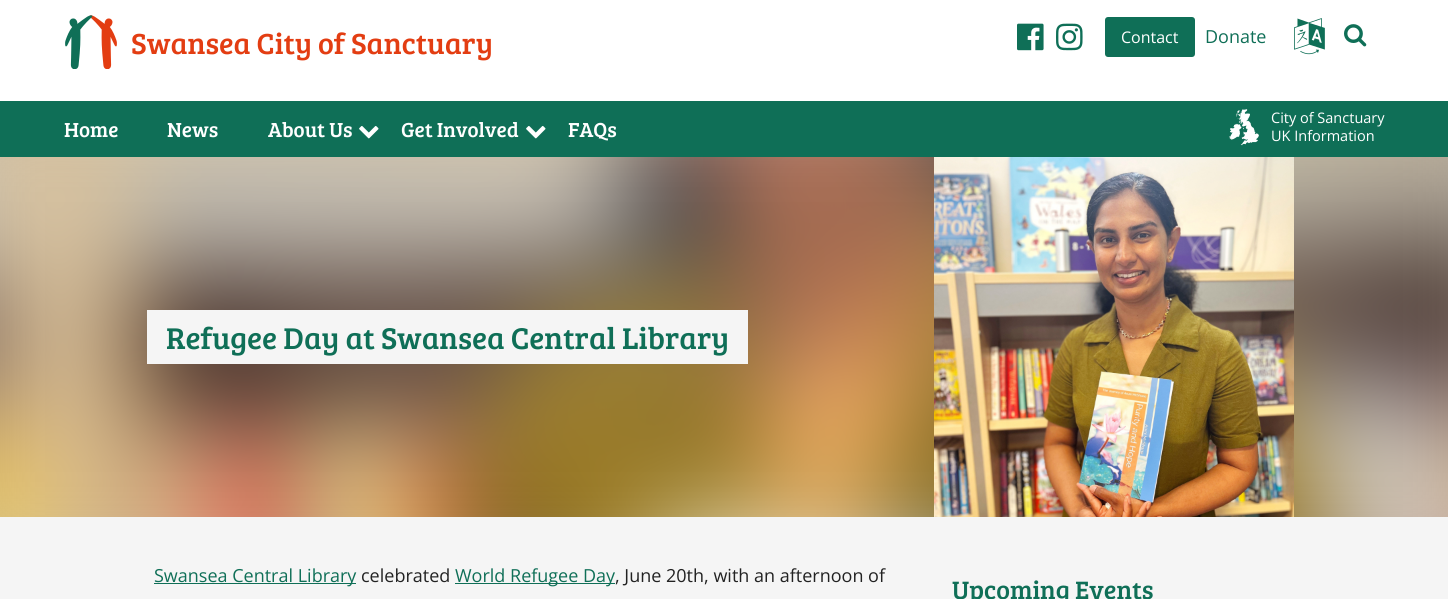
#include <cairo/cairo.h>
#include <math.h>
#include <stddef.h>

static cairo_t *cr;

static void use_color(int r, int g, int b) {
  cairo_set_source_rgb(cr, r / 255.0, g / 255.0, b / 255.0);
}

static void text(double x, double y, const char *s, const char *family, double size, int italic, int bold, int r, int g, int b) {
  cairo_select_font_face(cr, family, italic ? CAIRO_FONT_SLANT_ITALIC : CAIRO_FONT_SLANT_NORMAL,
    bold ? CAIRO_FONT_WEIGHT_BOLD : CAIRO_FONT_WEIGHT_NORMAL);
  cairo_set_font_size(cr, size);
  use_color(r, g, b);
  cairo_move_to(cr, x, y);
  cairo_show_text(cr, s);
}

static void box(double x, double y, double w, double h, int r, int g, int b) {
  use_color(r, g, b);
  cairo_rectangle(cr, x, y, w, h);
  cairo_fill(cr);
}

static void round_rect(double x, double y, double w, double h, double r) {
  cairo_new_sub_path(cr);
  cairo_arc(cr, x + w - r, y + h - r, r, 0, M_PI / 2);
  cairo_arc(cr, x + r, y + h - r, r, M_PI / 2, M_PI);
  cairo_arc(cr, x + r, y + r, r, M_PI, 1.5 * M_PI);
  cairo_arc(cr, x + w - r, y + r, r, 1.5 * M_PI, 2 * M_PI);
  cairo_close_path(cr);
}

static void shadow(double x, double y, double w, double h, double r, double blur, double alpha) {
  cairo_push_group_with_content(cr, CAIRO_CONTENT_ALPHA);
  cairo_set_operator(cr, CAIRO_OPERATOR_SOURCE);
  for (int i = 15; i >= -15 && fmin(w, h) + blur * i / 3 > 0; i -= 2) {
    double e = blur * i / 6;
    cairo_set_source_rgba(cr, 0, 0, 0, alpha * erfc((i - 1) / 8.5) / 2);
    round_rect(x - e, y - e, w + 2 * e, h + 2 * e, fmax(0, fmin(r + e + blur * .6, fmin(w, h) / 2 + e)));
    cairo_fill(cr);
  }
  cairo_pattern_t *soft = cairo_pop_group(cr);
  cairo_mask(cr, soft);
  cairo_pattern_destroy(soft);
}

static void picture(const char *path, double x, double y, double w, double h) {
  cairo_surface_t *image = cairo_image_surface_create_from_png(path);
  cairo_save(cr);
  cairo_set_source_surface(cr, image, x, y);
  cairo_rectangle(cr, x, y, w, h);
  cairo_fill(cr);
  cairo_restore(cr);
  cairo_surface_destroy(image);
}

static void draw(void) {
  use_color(255, 255, 255);
  cairo_paint(cr);
  picture("img_03.png", 1017, 23, 27, 28);
  picture("img_04.png", 1056, 23, 27, 28);
  use_color(15, 111, 87);
  round_rect(1105, 17, 90, 40, 3);
  cairo_fill(cr);
  picture("img_05.png", 1294, 18, 31, 37);
  picture("img_06.png", 1344, 24, 23, 23);
  box(0, 101, 1448, 56, 15, 111, 87);
  picture("img_07.png", 359, 126, 20, 13);
  picture("img_07.png", 526, 126, 20, 13);
  picture("img_08.png", 1229, 109, 30, 37);
  box(0, 157, 1448, 442, 245, 245, 245);
  box(154, 583, 202, 1, 15, 111, 87);
  box(455, 583, 160, 1, 15, 111, 87);
  cairo_save(cr);
  cairo_rectangle(cr, 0, 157, 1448, 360);
  cairo_clip(cr);
  use_color(170, 170, 170);
  shadow(-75, 82, 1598, 510, 0, 50, 1);
  cairo_restore(cr);
  picture("img_02.png", 89, 15, 28, 54);
  picture("img_01.png", 65, 15, 28, 54);
  picture("img_09.png", 0, 157, 1448, 360);
  use_color(245, 245, 245);
  cairo_new_path(cr);
  cairo_move_to(cr, 172, 310);
  cairo_line_to(cr, 172, 316);
  cairo_line_to(cr, 729, 316);
  cairo_line_to(cr, 729, 358);
  cairo_line_to(cr, 172, 358);
  cairo_line_to(cr, 172, 364);
  cairo_line_to(cr, 748, 364);
  cairo_line_to(cr, 748, 310);
  cairo_close_path(cr);
  cairo_fill(cr);
  cairo_new_path(cr);
  cairo_move_to(cr, 147, 310);
  cairo_line_to(cr, 147, 364);
  cairo_line_to(cr, 723, 364);
  cairo_line_to(cr, 723, 358);
  cairo_line_to(cr, 166, 358);
  cairo_line_to(cr, 166, 316);
  cairo_line_to(cr, 723, 316);
  cairo_line_to(cr, 723, 310);
  cairo_close_path(cr);
  cairo_fill(cr);
  box(166, 316, 563, 42, 245, 245, 245);
  picture("img_10.png", 934, 157, 360, 360);
  text(131, 54, "Swansea City of Sanctuary", "Bree Serif", 30, 0, 0, 227, 61, 18);
  text(1121, 43, "Contact", "Open Sans", 16, 0, 0, 255, 255, 255);
  text(1205, 43, "Donate", "Open Sans", 18, 0, 0, 15, 111, 87);
  text(64, 137, "Home", "Bree Serif", 21, 0, 0, 255, 255, 255);
  text(167, 137, "News", "Bree Serif", 21, 0, 0, 255, 255, 255);
  text(268, 137, "About Us", "Bree Serif", 21, 0, 0, 255, 255, 255);
  text(401, 137, "Get Involved", "Bree Serif", 21, 0, 0, 255, 255, 255);
  text(568, 137, "FAQs", "Bree Serif", 21, 0, 0, 255, 255, 255);
  text(1271, 123, "City of Sanctuary", "Open Sans", 14.5, 0, 0, 255, 255, 255);
  text(1271, 141, "UK Information", "Open Sans", 14.5, 0, 0, 255, 255, 255);
  text(166, 349, "Refugee Day at Swansea Central Library", "Bree Serif", 31, 0, 0, 15, 111, 87);
  text(154, 582, "Swansea Central Library", "Open Sans", 18, 0, 0, 15, 111, 87);
  text(361, 582, "celebrated", "Open Sans", 18, 0, 0, 34, 34, 34);
  text(455, 582, "World Refugee Day", "Open Sans", 18, 0, 0, 15, 111, 87);
  text(615, 582, ", June 20th, with an afternoon of", "Open Sans", 18, 0, 0, 34, 34, 34);
  text(952, 599, "Upcoming Events", "Bree Serif", 26, 0, 0, 15, 111, 87);
}

int main(void) {
  cairo_surface_t *surface = cairo_image_surface_create(CAIRO_FORMAT_RGB24, 1448, 599);
  cr = cairo_create(surface);
  cairo_font_options_t *options = cairo_font_options_create();
  cairo_font_options_set_hint_metrics(options, CAIRO_HINT_METRICS_OFF);
  cairo_font_options_set_hint_style(options, CAIRO_HINT_STYLE_NONE);
  cairo_set_font_options(cr, options);
  cairo_set_miter_limit(cr, 4);
  draw();
  cairo_surface_write_to_png(surface, "out.png");
  cairo_font_options_destroy(options);
  cairo_destroy(cr);
  cairo_surface_destroy(surface);
  return 0;
}
